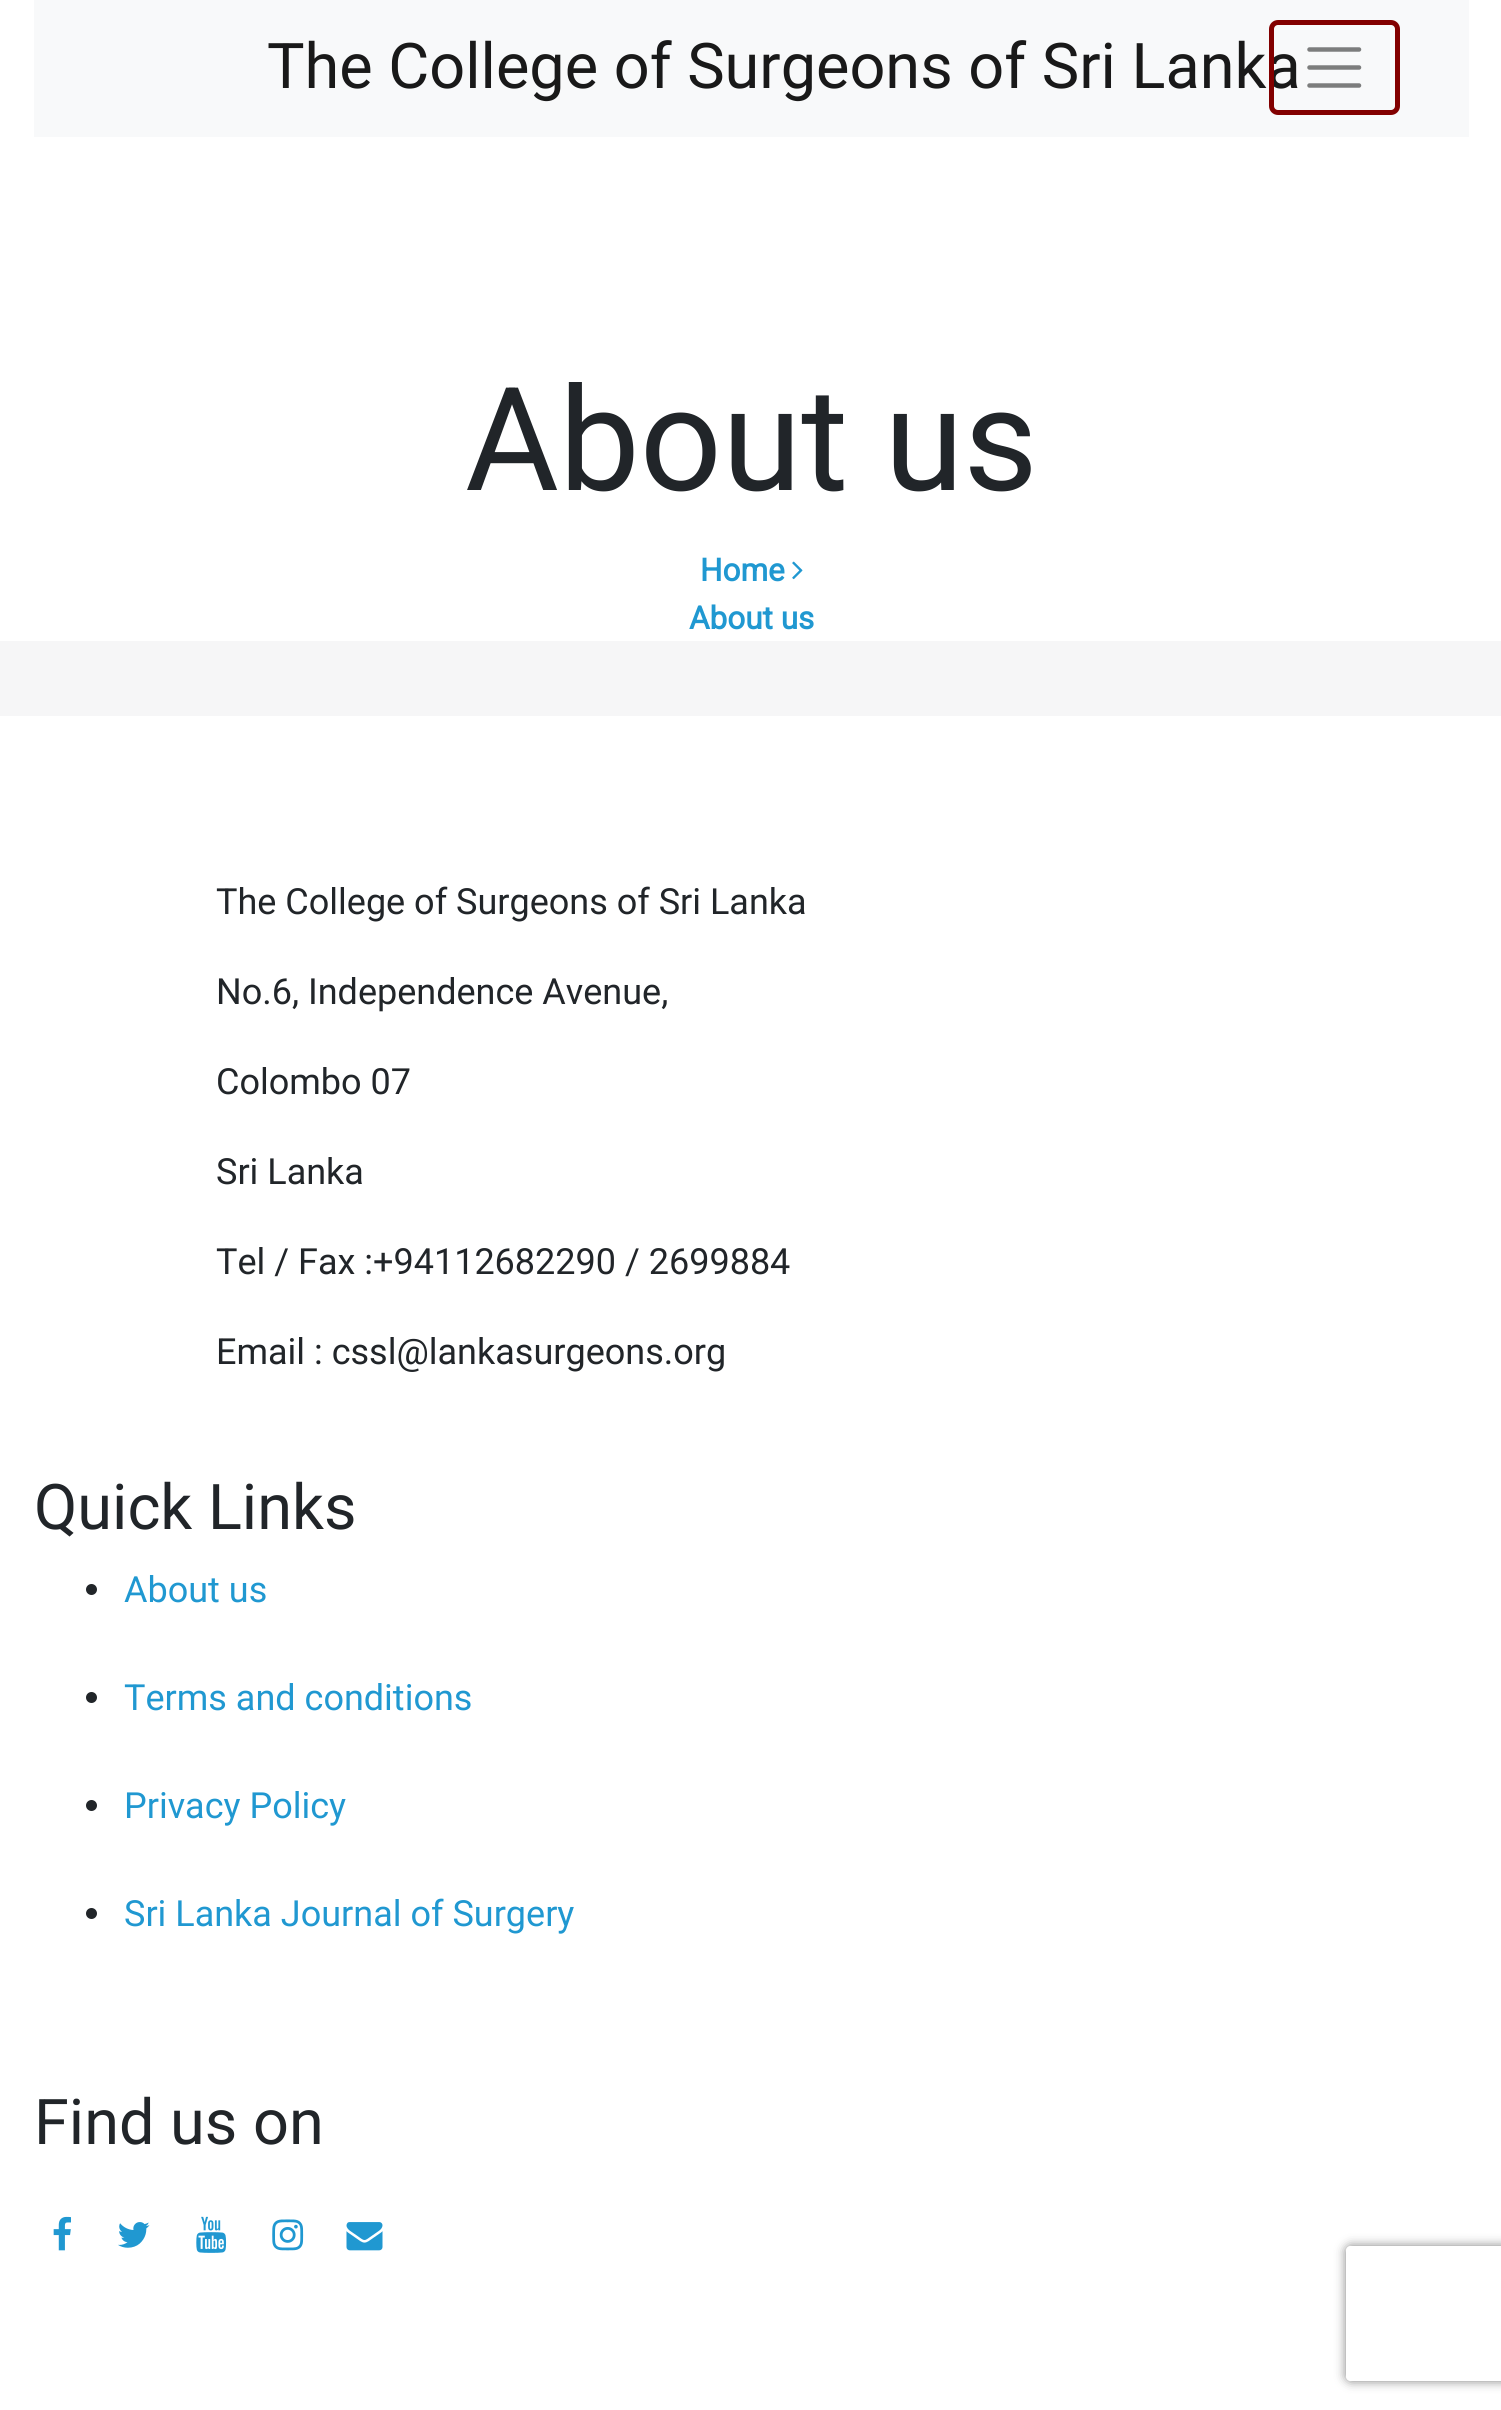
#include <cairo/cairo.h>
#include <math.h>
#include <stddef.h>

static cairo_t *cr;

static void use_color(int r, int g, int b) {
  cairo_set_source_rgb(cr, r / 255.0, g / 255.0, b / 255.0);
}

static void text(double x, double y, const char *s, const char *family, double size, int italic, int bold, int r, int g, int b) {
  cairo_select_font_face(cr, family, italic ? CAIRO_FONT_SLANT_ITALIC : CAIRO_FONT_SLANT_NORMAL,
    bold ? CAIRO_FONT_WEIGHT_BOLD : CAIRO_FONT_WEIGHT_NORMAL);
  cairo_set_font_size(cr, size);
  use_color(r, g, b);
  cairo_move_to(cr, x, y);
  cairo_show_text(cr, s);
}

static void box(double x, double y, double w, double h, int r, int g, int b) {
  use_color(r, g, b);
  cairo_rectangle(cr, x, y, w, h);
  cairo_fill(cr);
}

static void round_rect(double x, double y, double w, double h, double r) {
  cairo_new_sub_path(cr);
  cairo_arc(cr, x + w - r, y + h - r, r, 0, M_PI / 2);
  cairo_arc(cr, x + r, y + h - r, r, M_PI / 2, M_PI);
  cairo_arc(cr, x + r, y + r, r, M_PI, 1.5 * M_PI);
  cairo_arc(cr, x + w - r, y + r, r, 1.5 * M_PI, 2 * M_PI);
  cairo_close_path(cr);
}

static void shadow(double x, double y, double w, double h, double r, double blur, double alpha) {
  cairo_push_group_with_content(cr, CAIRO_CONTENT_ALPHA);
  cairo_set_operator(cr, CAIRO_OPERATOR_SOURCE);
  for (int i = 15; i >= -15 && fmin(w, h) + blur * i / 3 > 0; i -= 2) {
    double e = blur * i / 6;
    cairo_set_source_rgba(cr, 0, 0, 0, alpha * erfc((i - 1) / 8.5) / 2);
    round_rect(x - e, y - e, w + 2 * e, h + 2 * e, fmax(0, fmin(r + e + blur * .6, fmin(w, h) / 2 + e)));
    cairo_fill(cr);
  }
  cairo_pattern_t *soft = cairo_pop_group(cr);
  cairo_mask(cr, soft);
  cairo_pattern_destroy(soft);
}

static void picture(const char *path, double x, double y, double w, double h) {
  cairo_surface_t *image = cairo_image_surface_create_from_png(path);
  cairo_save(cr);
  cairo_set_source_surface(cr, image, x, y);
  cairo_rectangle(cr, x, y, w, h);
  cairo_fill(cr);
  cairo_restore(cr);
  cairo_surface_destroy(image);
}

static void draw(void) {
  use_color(255, 255, 255);
  cairo_paint(cr);
  box(34, 0, 1435, 137, 248, 249, 250);
  picture("img_01.png", 792, 561, 11, 19);
  box(0, 641, 1501, 75, 246, 246, 247);
  use_color(33, 37, 41);
  cairo_arc(cr, 91.5, 1589.5, 5.5, 0, 2 * M_PI);
  cairo_fill(cr);
  cairo_arc(cr, 91.5, 1697.5, 5.5, 0, 2 * M_PI);
  cairo_fill(cr);
  cairo_arc(cr, 91.5, 1805.5, 5.5, 0, 2 * M_PI);
  cairo_fill(cr);
  cairo_arc(cr, 91.5, 1913.5, 5.5, 0, 2 * M_PI);
  cairo_fill(cr);
  picture("img_02.png", 53, 2216, 18, 35);
  picture("img_03.png", 118, 2222, 32, 26);
  picture("img_04.png", 196, 2216, 31, 37);
  picture("img_05.png", 272, 2219, 32, 32);
  picture("img_06.png", 346, 2222, 37, 29);
  cairo_save(cr);
  cairo_set_fill_rule(cr, CAIRO_FILL_RULE_EVEN_ODD);
  cairo_new_path(cr);
  cairo_move_to(cr, 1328, 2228);
  cairo_line_to(cr, 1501, 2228);
  cairo_line_to(cr, 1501, 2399);
  cairo_line_to(cr, 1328, 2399);
  cairo_close_path(cr);
  cairo_move_to(cr, 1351, 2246);
  cairo_line_to(cr, 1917, 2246);
  cairo_curve_to(cr, 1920, 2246, 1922, 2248, 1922, 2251);
  cairo_line_to(cr, 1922, 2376);
  cairo_curve_to(cr, 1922, 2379, 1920, 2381, 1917, 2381);
  cairo_line_to(cr, 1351, 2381);
  cairo_curve_to(cr, 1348, 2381, 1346, 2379, 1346, 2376);
  cairo_line_to(cr, 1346, 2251);
  cairo_curve_to(cr, 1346, 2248, 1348, 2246, 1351, 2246);
  cairo_close_path(cr);
  cairo_clip(cr);
  use_color(128, 128, 128);
  shadow(1346, 2246, 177, 135, 5, 5.5, 1);
  cairo_restore(cr);
  text(267, 88, "The College of Surgeons of Sri Lanka", "Roboto", 63, 0, 0, 25, 25, 25);
  round_rect(1271.5, 22.5, 126, 90, 6.5);
  use_color(130, 0, 0);
  cairo_set_line_width(cr, 5);
  cairo_stroke(cr);
  cairo_new_path(cr);
  cairo_move_to(cr, 1309.5, 49.5);
  cairo_line_to(cr, 1359, 49.5);
  cairo_move_to(cr, 1309.5, 67.5);
  cairo_line_to(cr, 1359, 67.5);
  cairo_move_to(cr, 1309.5, 85.5);
  cairo_line_to(cr, 1359, 85.5);
  use_color(124, 125, 125);
  cairo_set_line_width(cr, 4.5);
  cairo_set_line_cap(cr, CAIRO_LINE_CAP_ROUND);
  cairo_stroke(cr);
  text(465, 490, "About us", "Roboto", 144, 0, 0, 33, 37, 41);
  text(700, 581, "Home", "Roboto", 31.5, 0, 1, 32, 152, 209);
  text(689, 629, "About us", "Roboto", 31.5, 0, 1, 32, 152, 209);
  text(216, 914, "The College of Surgeons of Sri Lanka", "Roboto", 36, 0, 0, 33, 37, 41);
  text(216, 1004, "No.6, Independence Avenue,", "Roboto", 36, 0, 0, 33, 37, 41);
  text(216, 1094, "Colombo 07", "Roboto", 36, 0, 0, 33, 37, 41);
  text(216, 1184, "Sri Lanka", "Roboto", 36, 0, 0, 33, 37, 41);
  text(216, 1274, "Tel / Fax :+94112682290 / 2699884", "Roboto", 36, 0, 0, 33, 37, 41);
  text(216, 1364, "Email : cssl@lankasurgeons.org", "Roboto", 36, 0, 0, 33, 37, 41);
  text(34, 1529, "Quick Links", "Roboto", 63, 0, 0, 33, 37, 41);
  text(124, 1602, "About us", "Roboto", 36, 0, 0, 32, 152, 209);
  text(124, 1710, "Terms and conditions", "Roboto", 36, 0, 0, 32, 152, 209);
  text(124, 1818, "Privacy Policy", "Roboto", 36, 0, 0, 32, 152, 209);
  text(124, 1926, "Sri Lanka Journal of Surgery", "Roboto", 36, 0, 0, 32, 152, 209);
  text(34, 2144, "Find us on", "Roboto", 63, 0, 0, 33, 37, 41);
}

int main(void) {
  cairo_surface_t *surface = cairo_image_surface_create(CAIRO_FORMAT_RGB24, 1501, 2410);
  cr = cairo_create(surface);
  cairo_font_options_t *options = cairo_font_options_create();
  cairo_font_options_set_hint_metrics(options, CAIRO_HINT_METRICS_OFF);
  cairo_font_options_set_hint_style(options, CAIRO_HINT_STYLE_NONE);
  cairo_set_font_options(cr, options);
  cairo_set_miter_limit(cr, 4);
  draw();
  cairo_surface_write_to_png(surface, "out.png");
  cairo_font_options_destroy(options);
  cairo_destroy(cr);
  cairo_surface_destroy(surface);
  return 0;
}
